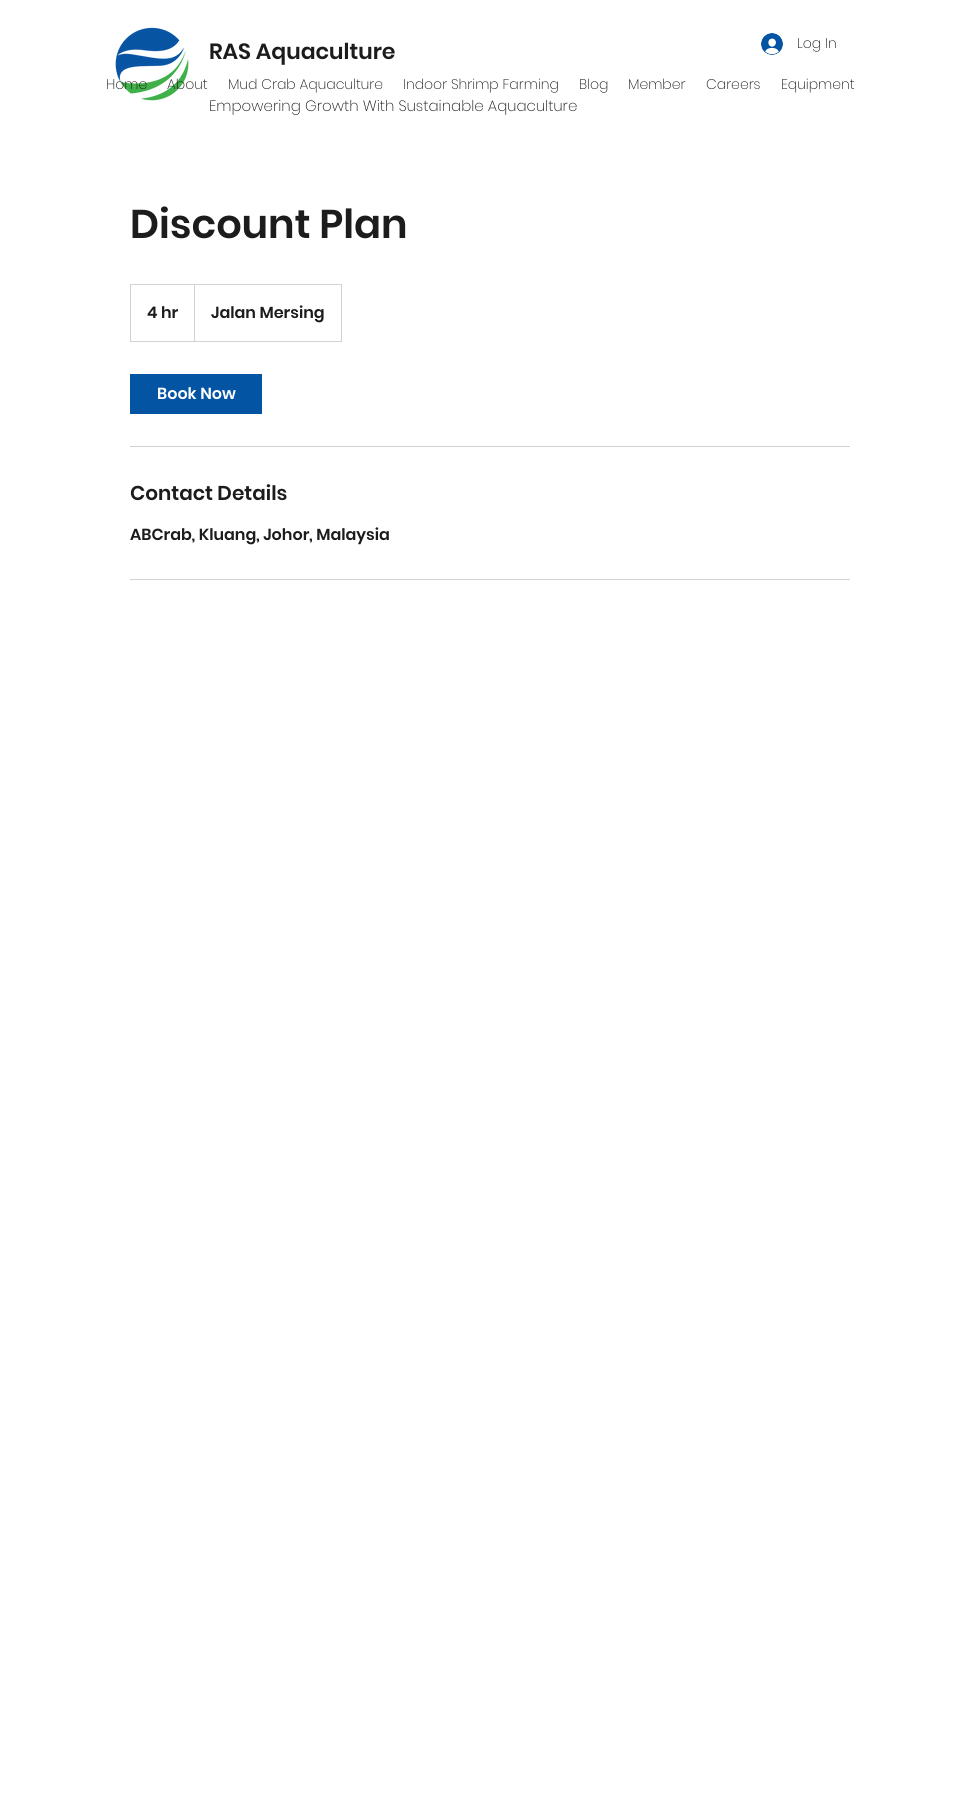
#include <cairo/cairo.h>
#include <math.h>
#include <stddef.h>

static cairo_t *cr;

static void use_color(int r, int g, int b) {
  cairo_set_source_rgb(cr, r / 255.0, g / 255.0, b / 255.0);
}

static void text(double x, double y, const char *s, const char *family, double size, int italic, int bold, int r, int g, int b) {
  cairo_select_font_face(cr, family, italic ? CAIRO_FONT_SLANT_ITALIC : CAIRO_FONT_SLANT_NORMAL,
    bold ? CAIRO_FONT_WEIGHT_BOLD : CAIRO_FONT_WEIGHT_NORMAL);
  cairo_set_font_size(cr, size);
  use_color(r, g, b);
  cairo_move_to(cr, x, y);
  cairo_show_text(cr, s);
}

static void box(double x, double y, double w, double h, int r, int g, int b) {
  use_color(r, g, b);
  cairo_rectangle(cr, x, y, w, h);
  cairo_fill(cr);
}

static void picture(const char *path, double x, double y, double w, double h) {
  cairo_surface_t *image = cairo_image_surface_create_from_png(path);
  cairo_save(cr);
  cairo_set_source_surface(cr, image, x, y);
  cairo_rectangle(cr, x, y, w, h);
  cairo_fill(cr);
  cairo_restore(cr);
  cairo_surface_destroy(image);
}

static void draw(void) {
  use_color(255, 255, 255);
  cairo_paint(cr);
  picture("img_01.png", 761, 33, 22, 22);
  picture("img_02.png", 115, 27, 74, 74);
  cairo_rectangle(cr, 130.5, 284.5, 211, 57);
  use_color(210, 210, 210);
  cairo_set_line_width(cr, 1);
  cairo_stroke(cr);
  cairo_new_path(cr);
  cairo_move_to(cr, 194, 341);
  cairo_line_to(cr, 194, 284);
  cairo_line_to(cr, 195, 285);
  cairo_line_to(cr, 195, 341);
  cairo_close_path(cr);
  cairo_fill(cr);
  box(130, 374, 132, 40, 4, 84, 164);
  box(130, 446, 720, 1, 210, 210, 210);
  box(130, 579, 720, 1, 210, 210, 210);
  text(797, 48, "Log In", "Poppins ExtraLight", 14, 0, 0, 29, 28, 28);
  text(106, 89, "Home", "Poppins ExtraLight", 14, 0, 0, 29, 28, 28);
  text(167, 89, "About", "Poppins ExtraLight", 14, 0, 0, 29, 28, 28);
  text(228, 89, "Mud Crab Aquaculture", "Poppins ExtraLight", 14, 0, 0, 29, 28, 28);
  text(403, 89, "Indoor Shrimp Farming", "Poppins ExtraLight", 14, 0, 0, 29, 28, 28);
  text(579, 89, "Blog", "Poppins ExtraLight", 14, 0, 0, 29, 28, 28);
  text(628, 89, "Member", "Poppins ExtraLight", 14, 0, 0, 29, 28, 28);
  text(706, 89, "Careers", "Poppins ExtraLight", 14, 0, 0, 29, 28, 28);
  text(781, 89, "Equipment", "Poppins ExtraLight", 14, 0, 0, 29, 28, 28);
  text(209, 59, "RAS Aquaculture", "Poppins SemiBold", 22, 0, 0, 29, 28, 28);
  text(209, 111, "Empowering Growth With Sustainable Aquaculture", "Poppins ExtraLight", 15, 0, 0, 29, 28, 28);
  text(130, 238, "Discount Plan", "Poppins SemiBold", 40, 0, 0, 29, 28, 28);
  text(147, 318, "4 hr", "Poppins SemiBold", 16, 0, 0, 29, 28, 28);
  text(211, 318, "Jalan Mersing", "Poppins SemiBold", 16, 0, 0, 29, 28, 28);
  text(157, 399, "Book Now", "Poppins SemiBold", 16, 0, 0, 255, 255, 255);
  text(130, 500, "Contact Details", "Poppins SemiBold", 20, 0, 0, 29, 28, 28);
  text(130, 540, "ABCrab, Kluang, Johor, Malaysia", "Poppins SemiBold", 16, 0, 0, 29, 28, 28);
}

int main(void) {
  cairo_surface_t *surface = cairo_image_surface_create(CAIRO_FORMAT_RGB24, 974, 1808);
  cr = cairo_create(surface);
  cairo_font_options_t *options = cairo_font_options_create();
  cairo_font_options_set_hint_metrics(options, CAIRO_HINT_METRICS_OFF);
  cairo_font_options_set_hint_style(options, CAIRO_HINT_STYLE_NONE);
  cairo_set_font_options(cr, options);
  cairo_set_miter_limit(cr, 4);
  draw();
  cairo_surface_write_to_png(surface, "out.png");
  cairo_font_options_destroy(options);
  cairo_destroy(cr);
  cairo_surface_destroy(surface);
  return 0;
}
